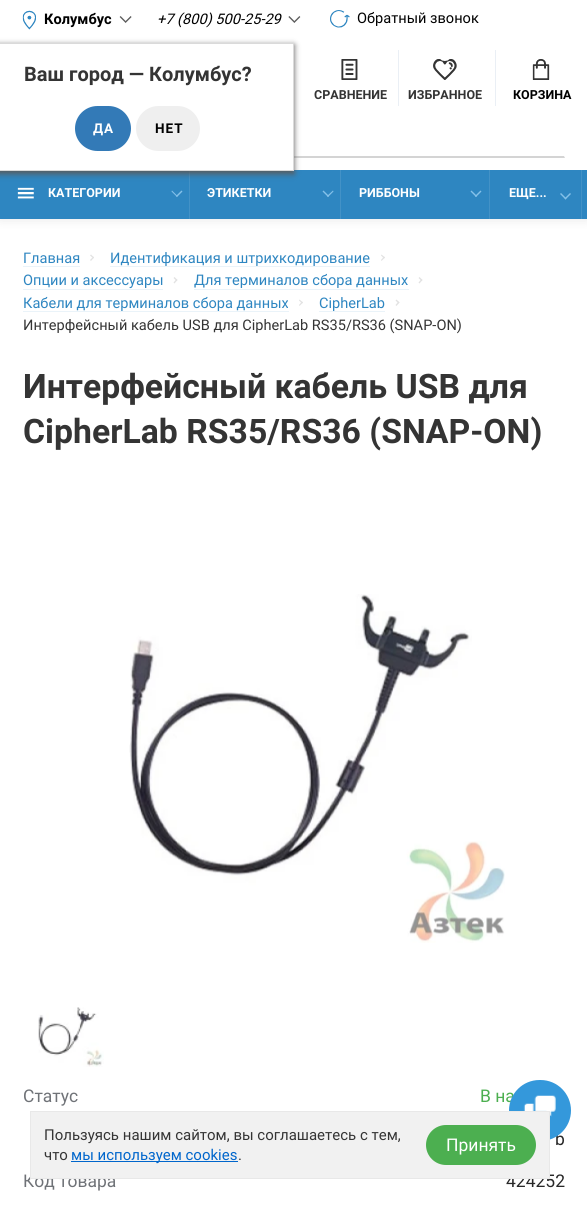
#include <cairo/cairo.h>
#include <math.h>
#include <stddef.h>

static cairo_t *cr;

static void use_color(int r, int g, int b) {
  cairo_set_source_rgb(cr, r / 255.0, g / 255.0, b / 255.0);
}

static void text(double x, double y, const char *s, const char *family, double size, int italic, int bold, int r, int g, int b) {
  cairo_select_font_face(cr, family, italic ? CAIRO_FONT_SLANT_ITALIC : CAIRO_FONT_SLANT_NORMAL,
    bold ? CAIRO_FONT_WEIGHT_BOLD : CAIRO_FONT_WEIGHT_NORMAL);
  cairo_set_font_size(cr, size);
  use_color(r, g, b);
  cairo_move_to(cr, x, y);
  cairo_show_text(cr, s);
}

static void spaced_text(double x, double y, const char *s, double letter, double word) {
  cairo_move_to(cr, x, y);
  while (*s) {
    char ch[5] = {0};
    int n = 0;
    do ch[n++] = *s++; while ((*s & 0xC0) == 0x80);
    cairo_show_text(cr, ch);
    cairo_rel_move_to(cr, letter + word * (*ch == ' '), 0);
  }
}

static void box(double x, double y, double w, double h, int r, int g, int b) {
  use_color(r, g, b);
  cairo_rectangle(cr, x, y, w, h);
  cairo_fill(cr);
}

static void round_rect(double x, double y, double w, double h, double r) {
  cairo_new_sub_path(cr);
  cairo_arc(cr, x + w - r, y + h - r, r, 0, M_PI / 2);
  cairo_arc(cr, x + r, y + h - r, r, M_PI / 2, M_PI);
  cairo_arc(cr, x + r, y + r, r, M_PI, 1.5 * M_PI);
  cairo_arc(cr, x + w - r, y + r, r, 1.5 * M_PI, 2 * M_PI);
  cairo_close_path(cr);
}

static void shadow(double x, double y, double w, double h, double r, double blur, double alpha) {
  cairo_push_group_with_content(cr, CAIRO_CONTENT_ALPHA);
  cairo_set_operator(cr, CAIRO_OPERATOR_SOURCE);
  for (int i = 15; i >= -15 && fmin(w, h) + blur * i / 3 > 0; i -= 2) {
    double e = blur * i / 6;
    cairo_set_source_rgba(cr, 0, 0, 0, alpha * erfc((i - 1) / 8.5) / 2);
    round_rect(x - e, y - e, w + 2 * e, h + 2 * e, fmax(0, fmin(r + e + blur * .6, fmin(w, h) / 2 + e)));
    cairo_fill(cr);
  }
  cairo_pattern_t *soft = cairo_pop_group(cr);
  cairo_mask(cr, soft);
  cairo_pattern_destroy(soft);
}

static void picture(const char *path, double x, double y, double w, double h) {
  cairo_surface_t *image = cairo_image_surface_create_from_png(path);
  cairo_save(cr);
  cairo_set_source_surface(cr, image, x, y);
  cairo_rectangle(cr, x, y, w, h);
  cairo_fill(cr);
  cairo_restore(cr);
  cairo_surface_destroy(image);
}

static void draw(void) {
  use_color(255, 255, 255);
  cairo_paint(cr);
  use_color(0, 0, 0);
  shadow(0, 0, 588, 219, 0, 5.5, 0.1);
  box(0, 0, 587, 170, 255, 255, 255);
  picture("img_01.png", 22, 10, 14, 20);
  use_color(212, 212, 212);
  cairo_new_path(cr);
  cairo_move_to(cr, 565, 158);
  cairo_line_to(cr, 22, 158);
  cairo_line_to(cr, 24, 156);
  cairo_line_to(cr, 564, 156);
  cairo_close_path(cr);
  cairo_fill(cr);
  box(0, 170, 587, 49, 46, 134, 193);
  box(189, 170, 1, 49, 67, 146, 199);
  use_color(91, 90, 90);
  shadow(-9, 45, 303, 129, 0, 3, 1);
  use_color(255, 255, 255);
  cairo_rectangle(cr, -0.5, 43.5, 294, 127);
  cairo_fill_preserve(cr);
  use_color(218, 218, 218);
  cairo_set_line_width(cr, 1);
  cairo_stroke(cr);
  use_color(51, 122, 183);
  round_rect(75, 106, 56, 45, 22.5);
  cairo_fill(cr);
  use_color(239, 239, 239);
  round_rect(136, 106, 64, 45, 22.5);
  cairo_fill(cr);
  picture("img_02.png", 119, 16, 13, 7);
  picture("img_03.png", 288, 16, 13, 7);
  picture("img_04.png", 330, 10, 20, 18);
  picture("img_05.png", 341, 59, 17, 21);
  box(398, 50, 1, 56, 234, 239, 245);
  picture("img_06.png", 433, 59, 24, 21);
  box(495, 50, 1, 56, 234, 239, 245);
  picture("img_07.png", 532, 59, 18, 21);
  picture("img_08.png", 17, 187, 17, 12);
  use_color(133, 193, 233);
  cairo_new_path(cr);
  cairo_move_to(cr, 181.5, 190.5);
  cairo_line_to(cr, 182.5, 191.5);
  cairo_line_to(cr, 177, 197);
  cairo_line_to(cr, 176, 196);
  cairo_close_path(cr);
  cairo_fill(cr);
  cairo_new_path(cr);
  cairo_move_to(cr, 172, 190.5);
  cairo_line_to(cr, 177.5, 196);
  cairo_line_to(cr, 177, 197);
  cairo_line_to(cr, 171.5, 191.5);
  cairo_close_path(cr);
  cairo_fill(cr);
  box(340, 170, 1, 49, 67, 146, 199);
  use_color(133, 193, 233);
  cairo_new_path(cr);
  cairo_move_to(cr, 333, 190.5);
  cairo_line_to(cr, 333.5, 191.5);
  cairo_line_to(cr, 328, 197);
  cairo_line_to(cr, 327, 196);
  cairo_close_path(cr);
  cairo_fill(cr);
  cairo_new_path(cr);
  cairo_move_to(cr, 323.5, 190.5);
  cairo_line_to(cr, 329, 196);
  cairo_line_to(cr, 328, 197);
  cairo_line_to(cr, 322.5, 191.5);
  cairo_close_path(cr);
  cairo_fill(cr);
  box(489, 170, 1, 49, 67, 146, 199);
  use_color(133, 193, 233);
  cairo_new_path(cr);
  cairo_move_to(cr, 480.5, 190.5);
  cairo_line_to(cr, 481.5, 191.5);
  cairo_line_to(cr, 476, 197);
  cairo_line_to(cr, 475, 196);
  cairo_close_path(cr);
  cairo_fill(cr);
  cairo_new_path(cr);
  cairo_move_to(cr, 471.5, 190.5);
  cairo_line_to(cr, 477, 196);
  cairo_line_to(cr, 476, 197);
  cairo_line_to(cr, 470.5, 191.5);
  cairo_close_path(cr);
  cairo_fill(cr);
  box(581, 170, 1, 49, 67, 146, 199);
  use_color(133, 193, 233);
  cairo_new_path(cr);
  cairo_move_to(cr, 570, 193);
  cairo_line_to(cr, 571, 194);
  cairo_line_to(cr, 565.5, 199.5);
  cairo_line_to(cr, 564.5, 198.5);
  cairo_close_path(cr);
  cairo_fill(cr);
  cairo_new_path(cr);
  cairo_move_to(cr, 561, 193);
  cairo_line_to(cr, 566.5, 198.5);
  cairo_line_to(cr, 565.5, 199.5);
  cairo_line_to(cr, 560, 194);
  cairo_close_path(cr);
  cairo_fill(cr);
  box(23, 266, 57, 1, 234, 243, 249);
  use_color(226, 226, 226);
  cairo_new_path(cr);
  cairo_move_to(cr, 90, 255.5);
  cairo_line_to(cr, 91, 254.5);
  cairo_line_to(cr, 94, 257.5);
  cairo_line_to(cr, 93.5, 258.5);
  cairo_close_path(cr);
  cairo_fill(cr);
  cairo_new_path(cr);
  cairo_move_to(cr, 90, 260);
  cairo_line_to(cr, 93.5, 256.5);
  cairo_line_to(cr, 94, 257.5);
  cairo_line_to(cr, 91, 261);
  cairo_close_path(cr);
  cairo_fill(cr);
  box(110, 266, 260, 1, 234, 243, 249);
  use_color(226, 226, 226);
  cairo_new_path(cr);
  cairo_move_to(cr, 381, 255.5);
  cairo_line_to(cr, 381.5, 254.5);
  cairo_line_to(cr, 385, 257.5);
  cairo_line_to(cr, 384, 258.5);
  cairo_close_path(cr);
  cairo_fill(cr);
  cairo_new_path(cr);
  cairo_move_to(cr, 381, 260);
  cairo_line_to(cr, 384, 256.5);
  cairo_line_to(cr, 385, 257.5);
  cairo_line_to(cr, 381.5, 261);
  cairo_close_path(cr);
  cairo_fill(cr);
  box(23, 289, 140, 1, 234, 243, 249);
  use_color(226, 226, 226);
  cairo_new_path(cr);
  cairo_move_to(cr, 173.5, 278);
  cairo_line_to(cr, 174.5, 277);
  cairo_line_to(cr, 177.5, 280);
  cairo_line_to(cr, 176.5, 281);
  cairo_close_path(cr);
  cairo_fill(cr);
  cairo_new_path(cr);
  cairo_move_to(cr, 173.5, 282.5);
  cairo_line_to(cr, 176.5, 279);
  cairo_line_to(cr, 177.5, 280);
  cairo_line_to(cr, 174.5, 283.5);
  cairo_close_path(cr);
  cairo_fill(cr);
  box(194, 289, 215, 1, 234, 243, 249);
  use_color(226, 226, 226);
  cairo_new_path(cr);
  cairo_move_to(cr, 418.5, 278);
  cairo_line_to(cr, 419.5, 277);
  cairo_line_to(cr, 422.5, 280);
  cairo_line_to(cr, 421.5, 281);
  cairo_close_path(cr);
  cairo_fill(cr);
  cairo_new_path(cr);
  cairo_move_to(cr, 418.5, 282.5);
  cairo_line_to(cr, 421.5, 279);
  cairo_line_to(cr, 422.5, 280);
  cairo_line_to(cr, 419.5, 283.5);
  cairo_close_path(cr);
  cairo_fill(cr);
  box(23, 311, 266, 1, 234, 243, 249);
  use_color(226, 226, 226);
  cairo_new_path(cr);
  cairo_move_to(cr, 299, 300.5);
  cairo_line_to(cr, 299.5, 299.5);
  cairo_line_to(cr, 303, 302.5);
  cairo_line_to(cr, 302, 303.5);
  cairo_close_path(cr);
  cairo_fill(cr);
  cairo_new_path(cr);
  cairo_move_to(cr, 299, 305);
  cairo_line_to(cr, 302, 301.5);
  cairo_line_to(cr, 303, 302.5);
  cairo_line_to(cr, 299.5, 306);
  cairo_close_path(cr);
  cairo_fill(cr);
  box(319, 311, 66, 1, 234, 243, 249);
  use_color(226, 226, 226);
  cairo_new_path(cr);
  cairo_move_to(cr, 395.5, 300.5);
  cairo_line_to(cr, 396.5, 299.5);
  cairo_line_to(cr, 399.5, 302.5);
  cairo_line_to(cr, 398.5, 303.5);
  cairo_close_path(cr);
  cairo_fill(cr);
  cairo_new_path(cr);
  cairo_move_to(cr, 395.5, 305);
  cairo_line_to(cr, 398.5, 301.5);
  cairo_line_to(cr, 399.5, 302.5);
  cairo_line_to(cr, 396.5, 306);
  cairo_close_path(cr);
  cairo_fill(cr);
  picture("img_09.png", 129, 594, 376, 349);
  picture("img_10.png", 38, 1007, 66, 60);
  text(44, 24, "Колумбус", "Roboto", 14.6, 0, 1, 0, 0, 0);
  text(24, 81, "Ваш город — Колумбус?", "Roboto", 20, 0, 1, 52, 52, 52);
  cairo_set_font_size(cr, 13.5);
  use_color(255, 255, 255);
  spaced_text(93, 133, "ДА", 1, 0);
  use_color(0, 0, 0);
  spaced_text(155, 133, "НЕТ", 1, 0);
  text(157, 24, "+7 (800) 500-25-29", "Roboto", 14.6, 1, 0, 0, 0, 0);
  text(357, 23, "Обратный звонок", "Roboto", 14.6, 0, 0, 0, 0, 0);
  text(314, 99, "СРАВНЕНИЕ", "Roboto", 12.5, 0, 1, 52, 52, 52);
  text(408, 99, "ИЗБРАННОЕ", "Roboto", 12.5, 0, 1, 52, 52, 52);
  text(513, 99, "КОРЗИНА", "Roboto", 12.5, 0, 1, 0, 0, 0);
  text(48, 197, "КАТЕГОРИИ", "Roboto", 12.5, 0, 1, 255, 255, 255);
  text(207, 197, "ЭТИКЕТКИ", "Roboto", 12.5, 0, 1, 255, 255, 255);
  text(359, 197, "РИББОНЫ", "Roboto", 12.5, 0, 1, 255, 255, 255);
  text(509, 197, "ЕЩЕ...", "Roboto", 12.5, 0, 1, 255, 255, 255);
  text(23, 263, "Главная", "Roboto", 14.6, 0, 0, 46, 134, 193);
  text(110, 263, "Идентификация и штрихкодирование", "Roboto", 14.6, 0, 0, 46, 134, 193);
  text(23, 285, "Опции и аксессуары", "Roboto", 14.6, 0, 0, 46, 134, 193);
  text(194, 285, "Для терминалов сбора данных", "Roboto", 14.6, 0, 0, 46, 134, 193);
  text(23, 308, "Кабели для терминалов сбора данных", "Roboto", 14.6, 0, 0, 46, 134, 193);
  text(319, 308, "CipherLab", "Roboto", 14.6, 0, 0, 46, 134, 193);
  text(23, 330, "Интерфейсный кабель USB для CipherLab RS35/RS36 (SNAP-ON)", "Roboto", 14.6, 0, 0, 52, 52, 52);
  text(23, 398, "Интерфейсный кабель USB для", "Roboto", 33.75, 0, 1, 52, 52, 52);
  text(23, 443, "CipherLab RS35/RS36 (SNAP-ON)", "Roboto", 33.75, 0, 1, 52, 52, 52);
  text(23, 1102, "Статус", "Roboto", 17.5, 0, 0, 111, 114, 119);
  text(480, 1102, "В на", "Roboto", 17.5, 0, 0, 76, 175, 80);
  text(555, 1145, "b", "Roboto", 17.5, 0, 0, 40, 40, 40);
  text(23, 1187, "Код товара", "Roboto", 17.5, 0, 0, 111, 114, 119);
  text(506, 1187, "424252", "Roboto", 17.5, 0, 0, 40, 40, 40);
  use_color(52, 152, 219);
  round_rect(509, 1080, 62, 61, 30.5);
  cairo_fill(cr);
  picture("img_11.png", 523, 1095, 33, 22);
  use_color(241, 241, 241);
  cairo_rectangle(cr, 30.5, 1111.5, 519, 67);
  cairo_fill_preserve(cr);
  use_color(232, 232, 232);
  cairo_stroke(cr);
  text(44, 1140, "Пользуясь нашим сайтом, вы соглашаетесь с тем,", "Roboto", 15, 0, 0, 52, 52, 52);
  text(44, 1160, "что", "Roboto", 15, 0, 0, 52, 52, 52);
  box(71, 1161, 167, 1, 0, 102, 204);
  text(71, 1160, "мы используем cookies", "Roboto", 15, 0, 0, 0, 102, 204);
  text(238, 1160, ".", "Roboto", 15, 0, 0, 52, 52, 52);
  use_color(76, 175, 80);
  round_rect(426, 1125, 110, 40, 20);
  cairo_fill(cr);
  text(446, 1151, "Принять", "Roboto", 17.5, 0, 0, 255, 255, 255);
}

int main(void) {
  cairo_surface_t *surface = cairo_image_surface_create(CAIRO_FORMAT_RGB24, 587, 1208);
  cr = cairo_create(surface);
  cairo_font_options_t *options = cairo_font_options_create();
  cairo_font_options_set_hint_metrics(options, CAIRO_HINT_METRICS_OFF);
  cairo_font_options_set_hint_style(options, CAIRO_HINT_STYLE_NONE);
  cairo_set_font_options(cr, options);
  cairo_set_miter_limit(cr, 4);
  draw();
  cairo_surface_write_to_png(surface, "out.png");
  cairo_font_options_destroy(options);
  cairo_destroy(cr);
  cairo_surface_destroy(surface);
  return 0;
}
